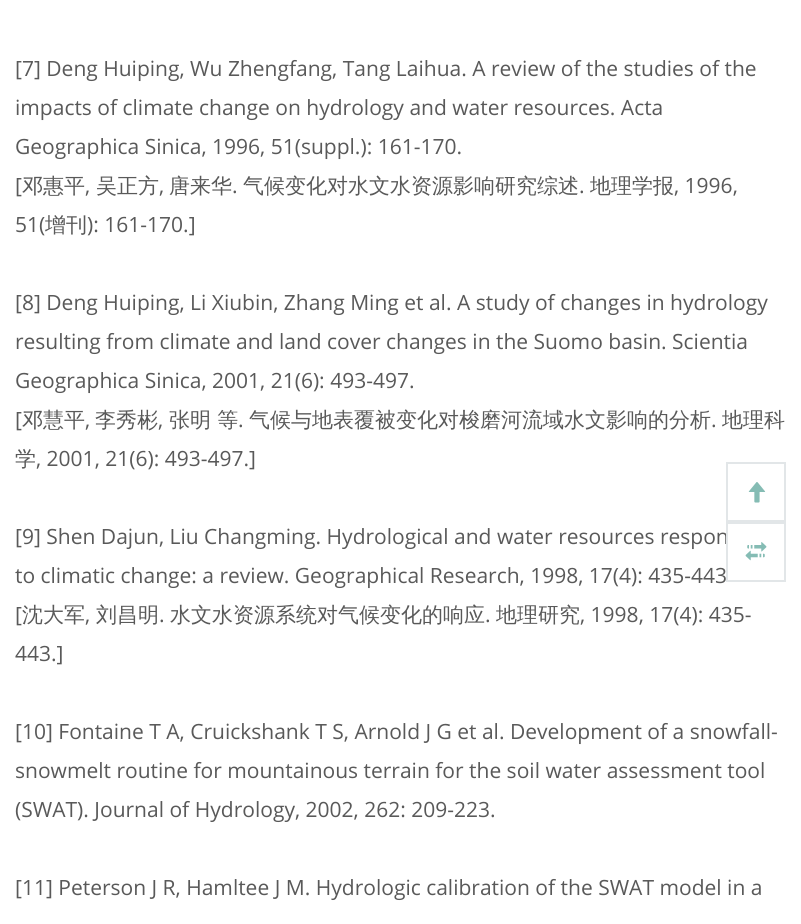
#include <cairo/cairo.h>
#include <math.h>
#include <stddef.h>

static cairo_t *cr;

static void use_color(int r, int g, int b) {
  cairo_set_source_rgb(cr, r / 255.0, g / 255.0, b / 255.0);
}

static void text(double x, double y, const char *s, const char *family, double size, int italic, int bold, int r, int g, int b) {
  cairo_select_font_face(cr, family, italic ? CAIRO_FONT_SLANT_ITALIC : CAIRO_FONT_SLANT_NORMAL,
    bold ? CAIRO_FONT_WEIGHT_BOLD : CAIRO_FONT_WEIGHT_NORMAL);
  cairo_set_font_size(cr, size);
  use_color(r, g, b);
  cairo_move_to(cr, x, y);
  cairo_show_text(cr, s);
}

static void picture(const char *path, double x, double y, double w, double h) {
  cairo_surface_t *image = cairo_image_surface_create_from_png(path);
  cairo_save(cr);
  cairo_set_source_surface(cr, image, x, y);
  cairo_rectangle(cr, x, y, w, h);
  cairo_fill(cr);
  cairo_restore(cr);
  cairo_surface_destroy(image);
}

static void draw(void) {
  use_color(255, 255, 255);
  cairo_paint(cr);
  cairo_rectangle(cr, 727, 463, 58, 58);
  use_color(226, 230, 232);
  cairo_stroke(cr);
  picture("img_01.png", 748, 482, 18, 21);
  text(15, 76, "[7] Deng Huiping, Wu Zhengfang, Tang Laihua. A review of the studies of the", "Open Sans", 21, 0, 0, 89, 89, 89);
  text(15, 115, "impacts of climate change on hydrology and water resources. Acta", "Open Sans", 21, 0, 0, 89, 89, 89);
  text(15, 154, "Geographica Sinica, 1996, 51(suppl.): 161-170.", "Open Sans", 21, 0, 0, 89, 89, 89);
  text(15, 193, "[", "Open Sans", 21, 0, 0, 89, 89, 89);
  text(22, 193, "邓惠平", "WenQuanYi Zen Hei Medium", 21, 0, 0, 89, 89, 89);
  text(85, 193, ",", "Open Sans", 21, 0, 0, 89, 89, 89);
  text(96, 193, "吴正方", "WenQuanYi Zen Hei Medium", 21, 0, 0, 89, 89, 89);
  text(159, 193, ",", "Open Sans", 21, 0, 0, 89, 89, 89);
  text(169, 193, "唐来华", "WenQuanYi Zen Hei Medium", 21, 0, 0, 89, 89, 89);
  text(232, 193, ".", "Open Sans", 21, 0, 0, 89, 89, 89);
  text(243, 193, "气候变化对水文水资源影响研究综述", "WenQuanYi Zen Hei Medium", 21, 0, 0, 89, 89, 89);
  text(579, 193, ".", "Open Sans", 21, 0, 0, 89, 89, 89);
  text(590, 193, "地理学报", "WenQuanYi Zen Hei Medium", 21, 0, 0, 89, 89, 89);
  text(674, 193, ", 1996,", "Open Sans", 21, 0, 0, 89, 89, 89);
  text(15, 232, "51(", "Open Sans", 21, 0, 0, 89, 89, 89);
  text(45, 232, "增刊", "WenQuanYi Zen Hei Medium", 21, 0, 0, 89, 89, 89);
  text(87, 232, "): 161-170.]", "Open Sans", 21, 0, 0, 89, 89, 89);
  text(15, 310, "[8] Deng Huiping, Li Xiubin, Zhang Ming et al. A study of changes in hydrology", "Open Sans", 21, 0, 0, 89, 89, 89);
  text(15, 349, "resulting from climate and land cover changes in the Suomo basin. Scientia", "Open Sans", 21, 0, 0, 89, 89, 89);
  text(15, 388, "Geographica Sinica, 2001, 21(6): 493-497.", "Open Sans", 21, 0, 0, 89, 89, 89);
  text(15, 427, "[", "Open Sans", 21, 0, 0, 89, 89, 89);
  text(22, 427, "邓慧平", "WenQuanYi Zen Hei Medium", 21, 0, 0, 89, 89, 89);
  text(85, 427, ",", "Open Sans", 21, 0, 0, 89, 89, 89);
  text(95, 427, "李秀彬", "WenQuanYi Zen Hei Medium", 21, 0, 0, 89, 89, 89);
  text(158, 427, ",", "Open Sans", 21, 0, 0, 89, 89, 89);
  text(169, 427, "张明 等", "WenQuanYi Zen Hei Medium", 21, 0, 0, 89, 89, 89);
  text(238, 427, ".", "Open Sans", 21, 0, 0, 89, 89, 89);
  text(249, 427, "气候与地表覆被变化对梭磨河流域水文影响的分析", "WenQuanYi Zen Hei Medium", 21, 0, 0, 89, 89, 89);
  text(711, 427, ".", "Open Sans", 21, 0, 0, 89, 89, 89);
  text(722, 427, "地理科", "WenQuanYi Zen Hei Medium", 21, 0, 0, 89, 89, 89);
  text(15, 466, "学", "WenQuanYi Zen Hei Medium", 21, 0, 0, 89, 89, 89);
  text(36, 466, ", 2001, 21(6): 493-497.]", "Open Sans", 21, 0, 0, 89, 89, 89);
  text(15, 544, "[9] Shen Dajun, Liu Changming. Hydrological and water resources respon", "Open Sans", 21, 0, 0, 89, 89, 89);
  text(15, 583, "to climatic change: a review. Geographical Research, 1998, 17(4): 435-443", "Open Sans", 21, 0, 0, 89, 89, 89);
  text(15, 622, "[", "Open Sans", 21, 0, 0, 89, 89, 89);
  text(22, 622, "沈大军", "WenQuanYi Zen Hei Medium", 21, 0, 0, 89, 89, 89);
  text(85, 622, ",", "Open Sans", 21, 0, 0, 89, 89, 89);
  text(96, 622, "刘昌明", "WenQuanYi Zen Hei Medium", 21, 0, 0, 89, 89, 89);
  text(159, 622, ".", "Open Sans", 21, 0, 0, 89, 89, 89);
  text(170, 622, "水文水资源系统对气候变化的响应", "WenQuanYi Zen Hei Medium", 21, 0, 0, 89, 89, 89);
  text(485, 622, ".", "Open Sans", 21, 0, 0, 89, 89, 89);
  text(496, 622, "地理研究", "WenQuanYi Zen Hei Medium", 21, 0, 0, 89, 89, 89);
  text(580, 622, ", 1998, 17(4): 435-", "Open Sans", 21, 0, 0, 89, 89, 89);
  text(15, 661, "443.]", "Open Sans", 21, 0, 0, 89, 89, 89);
  text(15, 739, "[10] Fontaine T A, Cruickshank T S, Arnold J G et al. Development of a snowfall-", "Open Sans", 21, 0, 0, 89, 89, 89);
  text(15, 778, "snowmelt routine for mountainous terrain for the soil water assessment tool", "Open Sans", 21, 0, 0, 89, 89, 89);
  text(15, 817, "(SWAT). Journal of Hydrology, 2002, 262: 209-223.", "Open Sans", 21, 0, 0, 89, 89, 89);
  text(15, 895, "[11] Peterson J R, Hamltee J M. Hydrologic calibration of the SWAT model in a", "Open Sans", 21, 0, 0, 89, 89, 89);
  cairo_rectangle(cr, 727, 523, 58, 58);
  use_color(226, 230, 232);
  cairo_stroke(cr);
  picture("img_02.png", 745, 542, 22, 19);
}

int main(void) {
  cairo_surface_t *surface = cairo_image_surface_create(CAIRO_FORMAT_RGB24, 801, 924);
  cr = cairo_create(surface);
  cairo_font_options_t *options = cairo_font_options_create();
  cairo_font_options_set_hint_metrics(options, CAIRO_HINT_METRICS_OFF);
  cairo_font_options_set_hint_style(options, CAIRO_HINT_STYLE_NONE);
  cairo_set_font_options(cr, options);
  cairo_set_miter_limit(cr, 4);
  draw();
  cairo_surface_write_to_png(surface, "out.png");
  cairo_font_options_destroy(options);
  cairo_destroy(cr);
  cairo_surface_destroy(surface);
  return 0;
}
